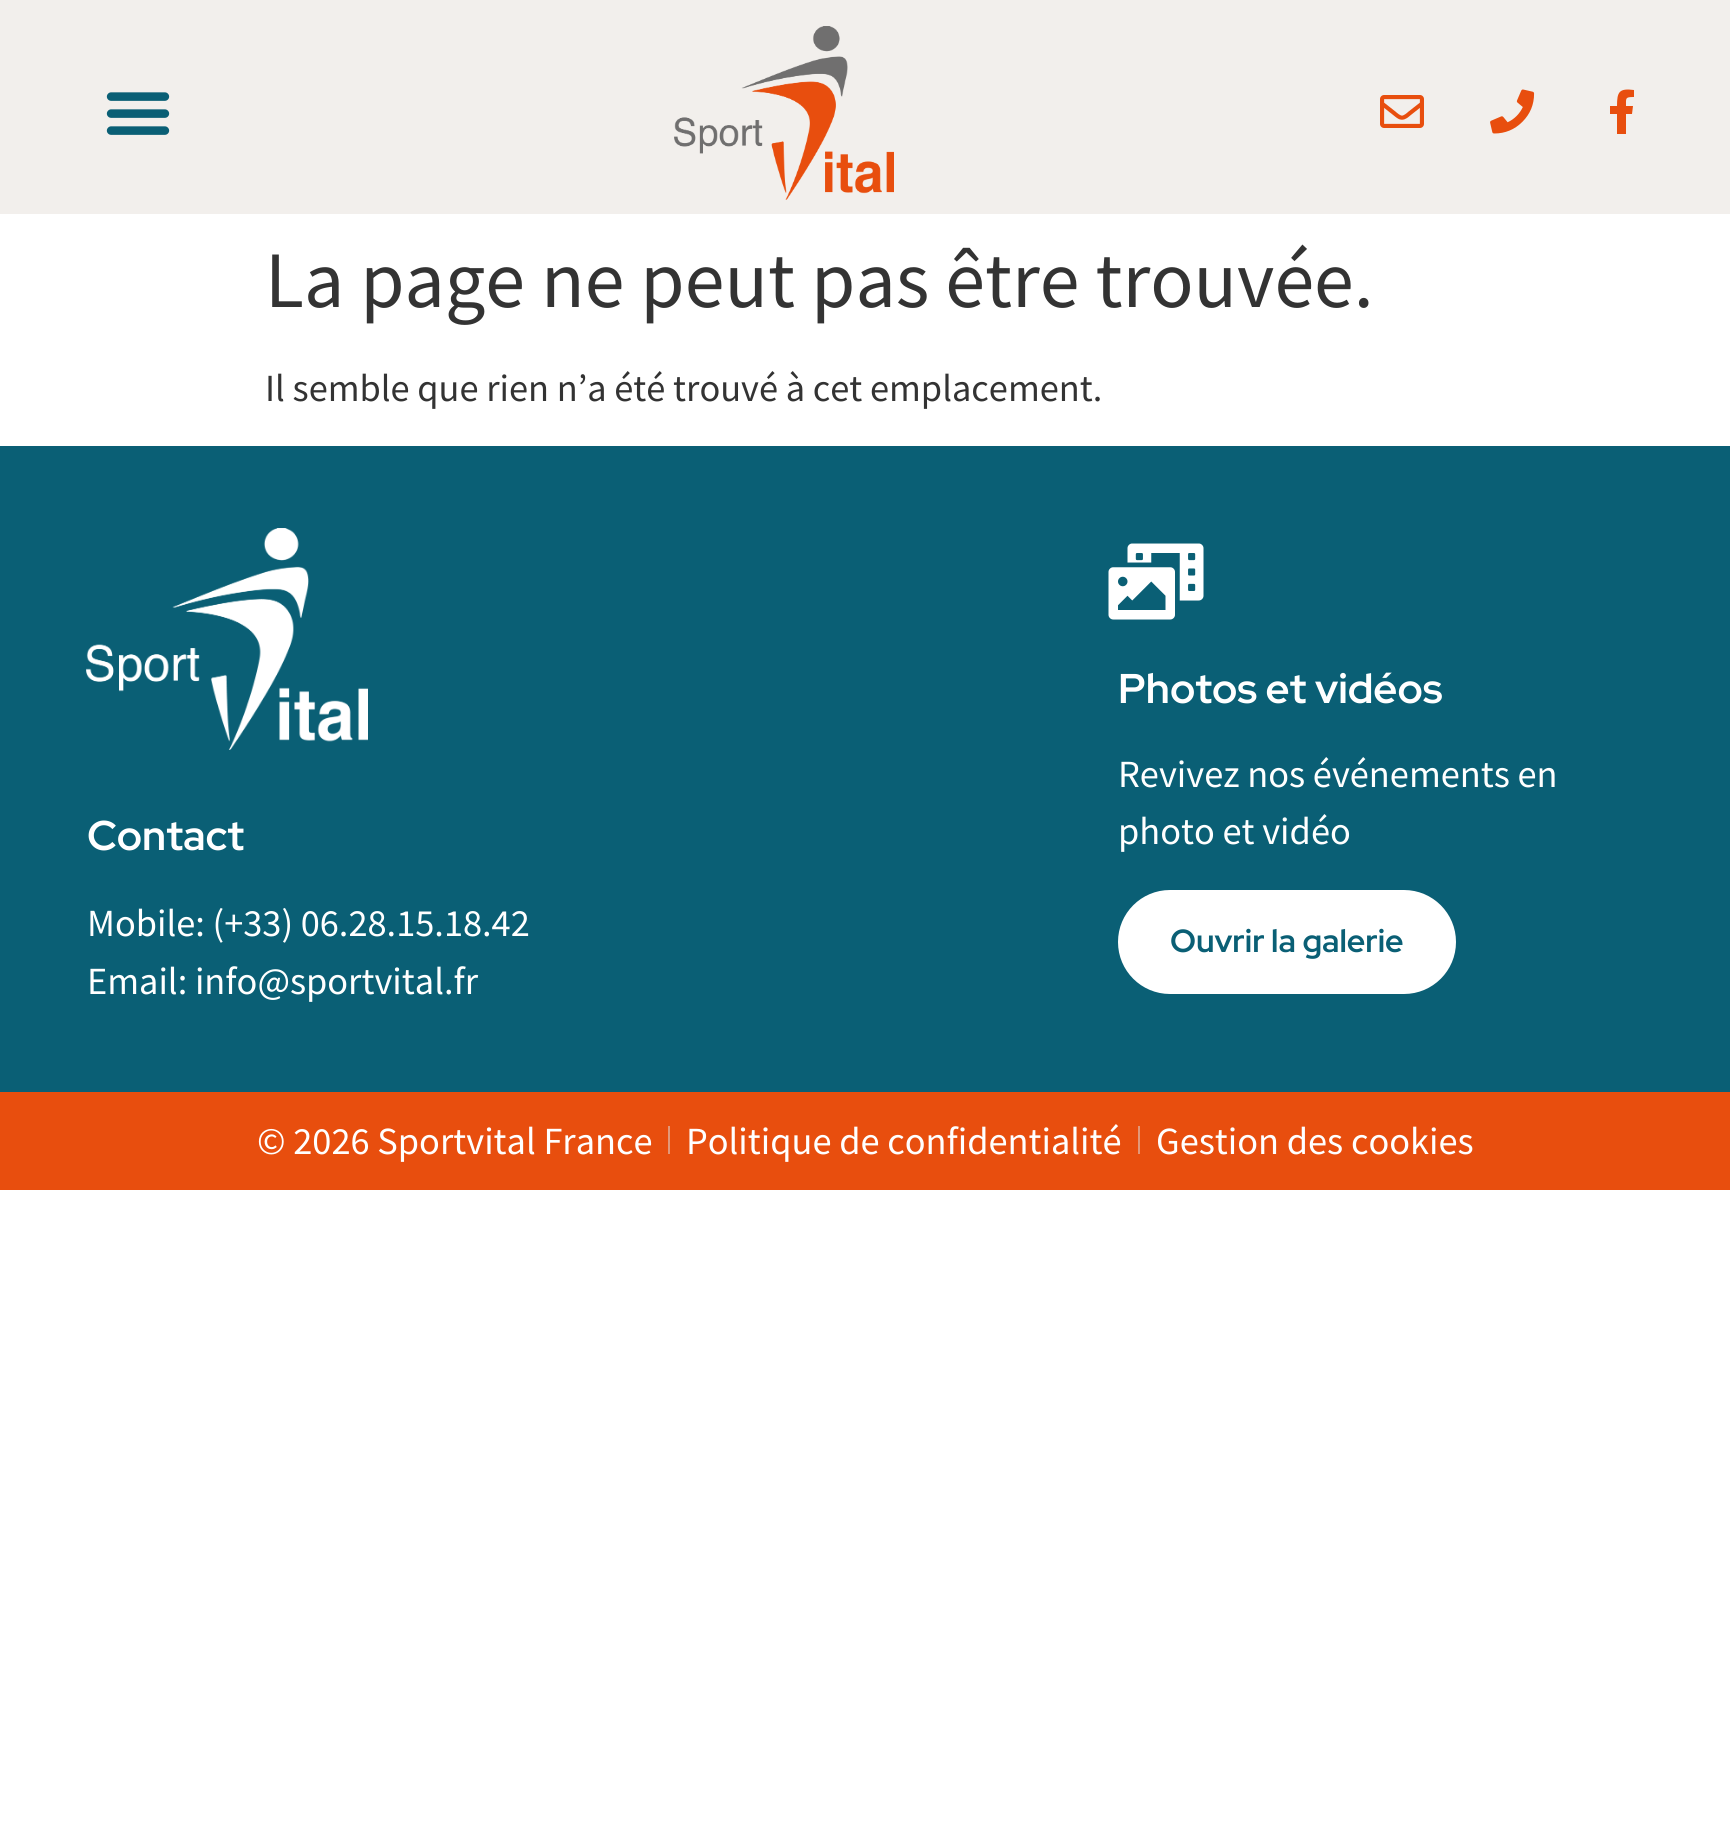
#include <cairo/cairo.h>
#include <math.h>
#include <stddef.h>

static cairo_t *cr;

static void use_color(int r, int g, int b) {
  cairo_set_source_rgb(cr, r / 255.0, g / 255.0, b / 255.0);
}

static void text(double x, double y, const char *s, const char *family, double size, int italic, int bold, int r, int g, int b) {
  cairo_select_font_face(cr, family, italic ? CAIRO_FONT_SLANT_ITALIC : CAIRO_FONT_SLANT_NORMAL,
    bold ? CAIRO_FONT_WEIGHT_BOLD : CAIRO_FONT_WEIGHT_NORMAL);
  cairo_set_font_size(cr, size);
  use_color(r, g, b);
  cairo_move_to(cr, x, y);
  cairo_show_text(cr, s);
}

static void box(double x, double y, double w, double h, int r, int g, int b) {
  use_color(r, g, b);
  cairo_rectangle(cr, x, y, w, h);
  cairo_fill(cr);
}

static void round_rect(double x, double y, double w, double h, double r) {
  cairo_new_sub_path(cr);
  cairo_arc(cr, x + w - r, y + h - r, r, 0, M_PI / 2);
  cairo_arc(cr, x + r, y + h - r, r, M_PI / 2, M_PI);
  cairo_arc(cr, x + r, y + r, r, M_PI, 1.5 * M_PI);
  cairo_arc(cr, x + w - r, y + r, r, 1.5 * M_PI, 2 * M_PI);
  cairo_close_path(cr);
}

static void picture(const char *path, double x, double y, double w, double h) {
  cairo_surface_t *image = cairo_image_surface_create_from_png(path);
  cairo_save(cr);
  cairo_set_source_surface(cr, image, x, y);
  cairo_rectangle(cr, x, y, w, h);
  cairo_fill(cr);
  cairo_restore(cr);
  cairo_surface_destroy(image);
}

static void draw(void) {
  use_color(255, 255, 255);
  cairo_paint(cr);
  box(0, 0, 1730, 214, 242, 239, 236);
  picture("img_01.png", 106, 92, 64, 43);
  picture("img_02.png", 674, 26, 220, 174);
  picture("img_03.png", 1380, 95, 44, 33);
  picture("img_04.png", 1490, 89, 45, 45);
  use_color(232, 78, 14);
  cairo_new_path(cr);
  cairo_move_to(cr, 1632, 114);
  cairo_line_to(cr, 1626, 114);
  cairo_line_to(cr, 1626, 134);
  cairo_line_to(cr, 1617, 134);
  cairo_line_to(cr, 1617, 114);
  cairo_line_to(cr, 1610, 114);
  cairo_line_to(cr, 1610, 106);
  cairo_line_to(cr, 1617, 106);
  cairo_curve_to(cr, 1617, 92, 1619, 88, 1634, 90);
  cairo_line_to(cr, 1634, 97);
  cairo_curve_to(cr, 1625, 97, 1626, 98, 1626, 106);
  cairo_line_to(cr, 1633, 106);
  cairo_close_path(cr);
  cairo_fill(cr);
  box(0, 446, 1730, 646, 10, 95, 117);
  picture("img_05.png", 86, 528, 282, 222);
  picture("img_06.png", 1108, 543, 96, 77);
  use_color(255, 255, 255);
  round_rect(1120, 892, 334, 100, 50);
  cairo_fill_preserve(cr);
  cairo_set_line_width(cr, 4);
  cairo_stroke(cr);
  box(0, 1092, 1730, 98, 232, 78, 14);
  box(668, 1126, 2, 28, 226, 152, 122);
  box(1138, 1126, 2, 28, 226, 152, 122);
  text(265, 307, "La page ne peut pas être trouvée.", "Source Sans Pro", 80, 0, 0, 51, 51, 51);
  text(265, 401, "Il semble que rien n’a été trouvé à cet emplacement.", "Source Sans Pro", 38.4, 0, 0, 51, 51, 51);
  text(87, 850, "Contact", "Red Hat Display", 41.5, 0, 1, 255, 255, 255);
  text(87, 936, "Mobile: (+33) 06.28.15.18.42", "Source Sans Pro", 38.4, 0, 0, 255, 255, 255);
  text(87, 994, "Email: info@sportvital.fr", "Source Sans Pro", 38.4, 0, 0, 255, 255, 255);
  text(1118, 703, "Photos et vidéos", "Red Hat Display", 41.5, 0, 1, 255, 255, 255);
  text(1118, 787, "Revivez nos événements en", "Source Sans Pro", 38.4, 0, 0, 255, 255, 255);
  text(1118, 844, "photo et vidéo", "Source Sans Pro", 38.4, 0, 0, 255, 255, 255);
  text(1170, 952, "Ouvrir la galerie", "Red Hat Display", 32, 0, 1, 10, 95, 117);
  text(257, 1154, "© 2026 Sportvital France", "Source Sans Pro", 38.4, 0, 0, 255, 255, 255);
  text(686, 1154, "Politique de confidentialité", "Source Sans Pro", 38.4, 0, 0, 255, 255, 255);
  text(1156, 1154, "Gestion des cookies", "Source Sans Pro", 38.4, 0, 0, 255, 255, 255);
}

int main(void) {
  cairo_surface_t *surface = cairo_image_surface_create(CAIRO_FORMAT_RGB24, 1730, 1827);
  cr = cairo_create(surface);
  cairo_font_options_t *options = cairo_font_options_create();
  cairo_font_options_set_hint_metrics(options, CAIRO_HINT_METRICS_OFF);
  cairo_font_options_set_hint_style(options, CAIRO_HINT_STYLE_NONE);
  cairo_set_font_options(cr, options);
  cairo_set_miter_limit(cr, 4);
  draw();
  cairo_surface_write_to_png(surface, "out.png");
  cairo_font_options_destroy(options);
  cairo_destroy(cr);
  cairo_surface_destroy(surface);
  return 0;
}
